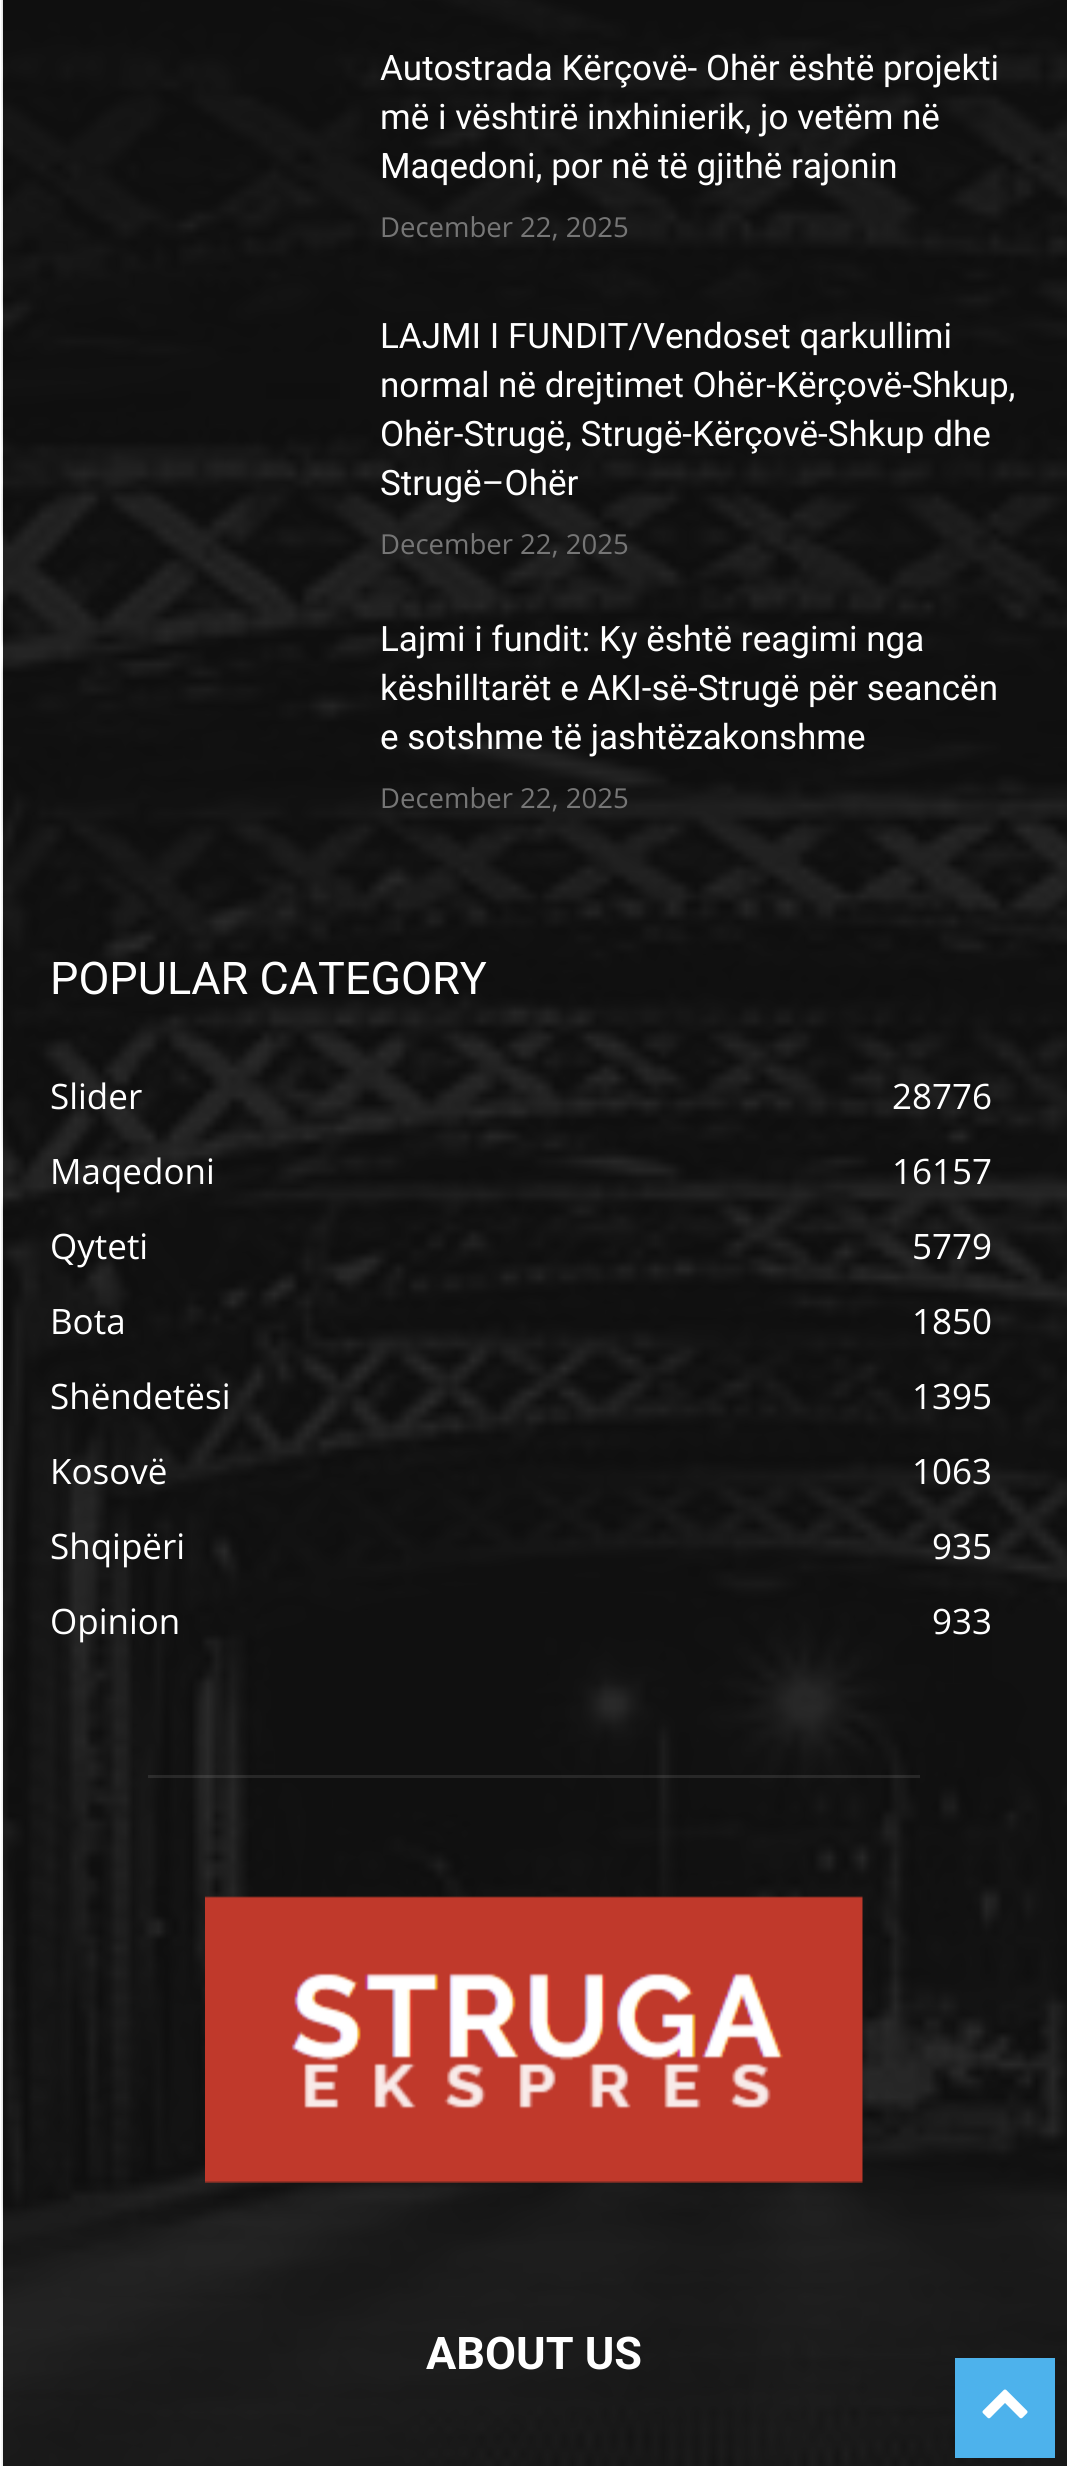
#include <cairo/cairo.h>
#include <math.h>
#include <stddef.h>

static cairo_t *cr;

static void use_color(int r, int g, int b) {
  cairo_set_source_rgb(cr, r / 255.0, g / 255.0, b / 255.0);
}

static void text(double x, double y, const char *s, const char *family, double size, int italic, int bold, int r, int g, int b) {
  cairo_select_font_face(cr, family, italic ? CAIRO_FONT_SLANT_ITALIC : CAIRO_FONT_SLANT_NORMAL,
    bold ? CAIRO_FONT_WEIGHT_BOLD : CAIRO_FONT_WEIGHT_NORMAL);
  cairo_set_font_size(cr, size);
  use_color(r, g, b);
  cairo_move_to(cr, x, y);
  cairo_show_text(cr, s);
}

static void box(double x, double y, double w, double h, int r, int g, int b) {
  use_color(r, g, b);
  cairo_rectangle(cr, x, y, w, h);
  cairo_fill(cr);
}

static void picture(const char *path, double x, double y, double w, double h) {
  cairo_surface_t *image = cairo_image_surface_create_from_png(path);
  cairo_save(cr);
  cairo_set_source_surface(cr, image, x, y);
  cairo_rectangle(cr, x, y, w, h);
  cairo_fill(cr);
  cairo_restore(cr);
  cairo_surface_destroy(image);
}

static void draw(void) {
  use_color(255, 255, 255);
  cairo_paint(cr);
  box(3, 0, 1064, 2466, 17, 17, 17);
  picture("img_01.png", 1, 0, 1066, 2466);
  cairo_set_source_rgba(cr, 1, 1, 1, 0.1);
  cairo_rectangle(cr, 148, 1775, 772, 3);
  cairo_fill(cr);
  picture("img_02.png", 205, 1896, 658, 287);
  box(955, 2358, 100, 100, 77, 178, 236);
  picture("img_03.png", 982, 2389, 46, 30);
  text(380, 80, "Autostrada Kërçovë- Ohër është projekti", "Roboto", 35, 0, 0, 255, 255, 255);
  text(380, 129, "më i vështirë inxhinierik, jo vetëm në", "Roboto", 35, 0, 0, 255, 255, 255);
  text(380, 178, "Maqedoni, por në të gjithë rajonin", "Roboto", 35, 0, 0, 255, 255, 255);
  text(380, 237, "December 22, 2025", "Open Sans", 27.5, 0, 0, 118, 118, 118);
  text(380, 348, "LAJMI I FUNDIT/Vendoset qarkullimi", "Roboto", 35, 0, 0, 255, 255, 255);
  text(380, 397, "normal në drejtimet Ohër-Kërçovë-Shkup,", "Roboto", 35, 0, 0, 255, 255, 255);
  text(380, 446, "Ohër-Strugë, Strugë-Kërçovë-Shkup dhe", "Roboto", 35, 0, 0, 255, 255, 255);
  text(380, 495, "Strugë–Ohër", "Roboto", 35, 0, 0, 255, 255, 255);
  text(380, 554, "December 22, 2025", "Open Sans", 27.5, 0, 0, 118, 118, 118);
  text(380, 651, "Lajmi i fundit: Ky është reagimi nga", "Roboto", 35, 0, 0, 255, 255, 255);
  text(380, 700, "këshilltarët e AKI-së-Strugë për seancën", "Roboto", 35, 0, 0, 255, 255, 255);
  text(380, 749, "e sotshme të jashtëzakonshme", "Roboto", 35, 0, 0, 255, 255, 255);
  text(380, 808, "December 22, 2025", "Open Sans", 27.5, 0, 0, 118, 118, 118);
  text(50, 994, "POPULAR CATEGORY", "Roboto", 45, 0, 0, 255, 255, 255);
  text(50, 1109, "Slider", "Open Sans", 35, 0, 0, 255, 255, 255);
  text(892, 1109, "28776", "Open Sans", 35, 0, 0, 255, 255, 255);
  text(50, 1184, "Maqedoni", "Open Sans", 35, 0, 0, 255, 255, 255);
  text(892, 1184, "16157", "Open Sans", 35, 0, 0, 255, 255, 255);
  text(50, 1259, "Qyteti", "Open Sans", 35, 0, 0, 255, 255, 255);
  text(912, 1259, "5779", "Open Sans", 35, 0, 0, 255, 255, 255);
  text(50, 1334, "Bota", "Open Sans", 35, 0, 0, 255, 255, 255);
  text(912, 1334, "1850", "Open Sans", 35, 0, 0, 255, 255, 255);
  text(50, 1409, "Shëndetësi", "Open Sans", 35, 0, 0, 255, 255, 255);
  text(912, 1409, "1395", "Open Sans", 35, 0, 0, 255, 255, 255);
  text(50, 1484, "Kosovë", "Open Sans", 35, 0, 0, 255, 255, 255);
  text(912, 1484, "1063", "Open Sans", 35, 0, 0, 255, 255, 255);
  text(50, 1559, "Shqipëri", "Open Sans", 35, 0, 0, 255, 255, 255);
  text(932, 1559, "935", "Open Sans", 35, 0, 0, 255, 255, 255);
  text(50, 1634, "Opinion", "Open Sans", 35, 0, 0, 255, 255, 255);
  text(932, 1634, "933", "Open Sans", 35, 0, 0, 255, 255, 255);
  text(426, 2369, "ABOUT US", "Roboto", 45, 0, 1, 255, 255, 255);
}

int main(void) {
  cairo_surface_t *surface = cairo_image_surface_create(CAIRO_FORMAT_RGB24, 1067, 2466);
  cr = cairo_create(surface);
  cairo_font_options_t *options = cairo_font_options_create();
  cairo_font_options_set_hint_metrics(options, CAIRO_HINT_METRICS_OFF);
  cairo_font_options_set_hint_style(options, CAIRO_HINT_STYLE_NONE);
  cairo_set_font_options(cr, options);
  cairo_set_miter_limit(cr, 4);
  draw();
  cairo_surface_write_to_png(surface, "out.png");
  cairo_font_options_destroy(options);
  cairo_destroy(cr);
  cairo_surface_destroy(surface);
  return 0;
}
